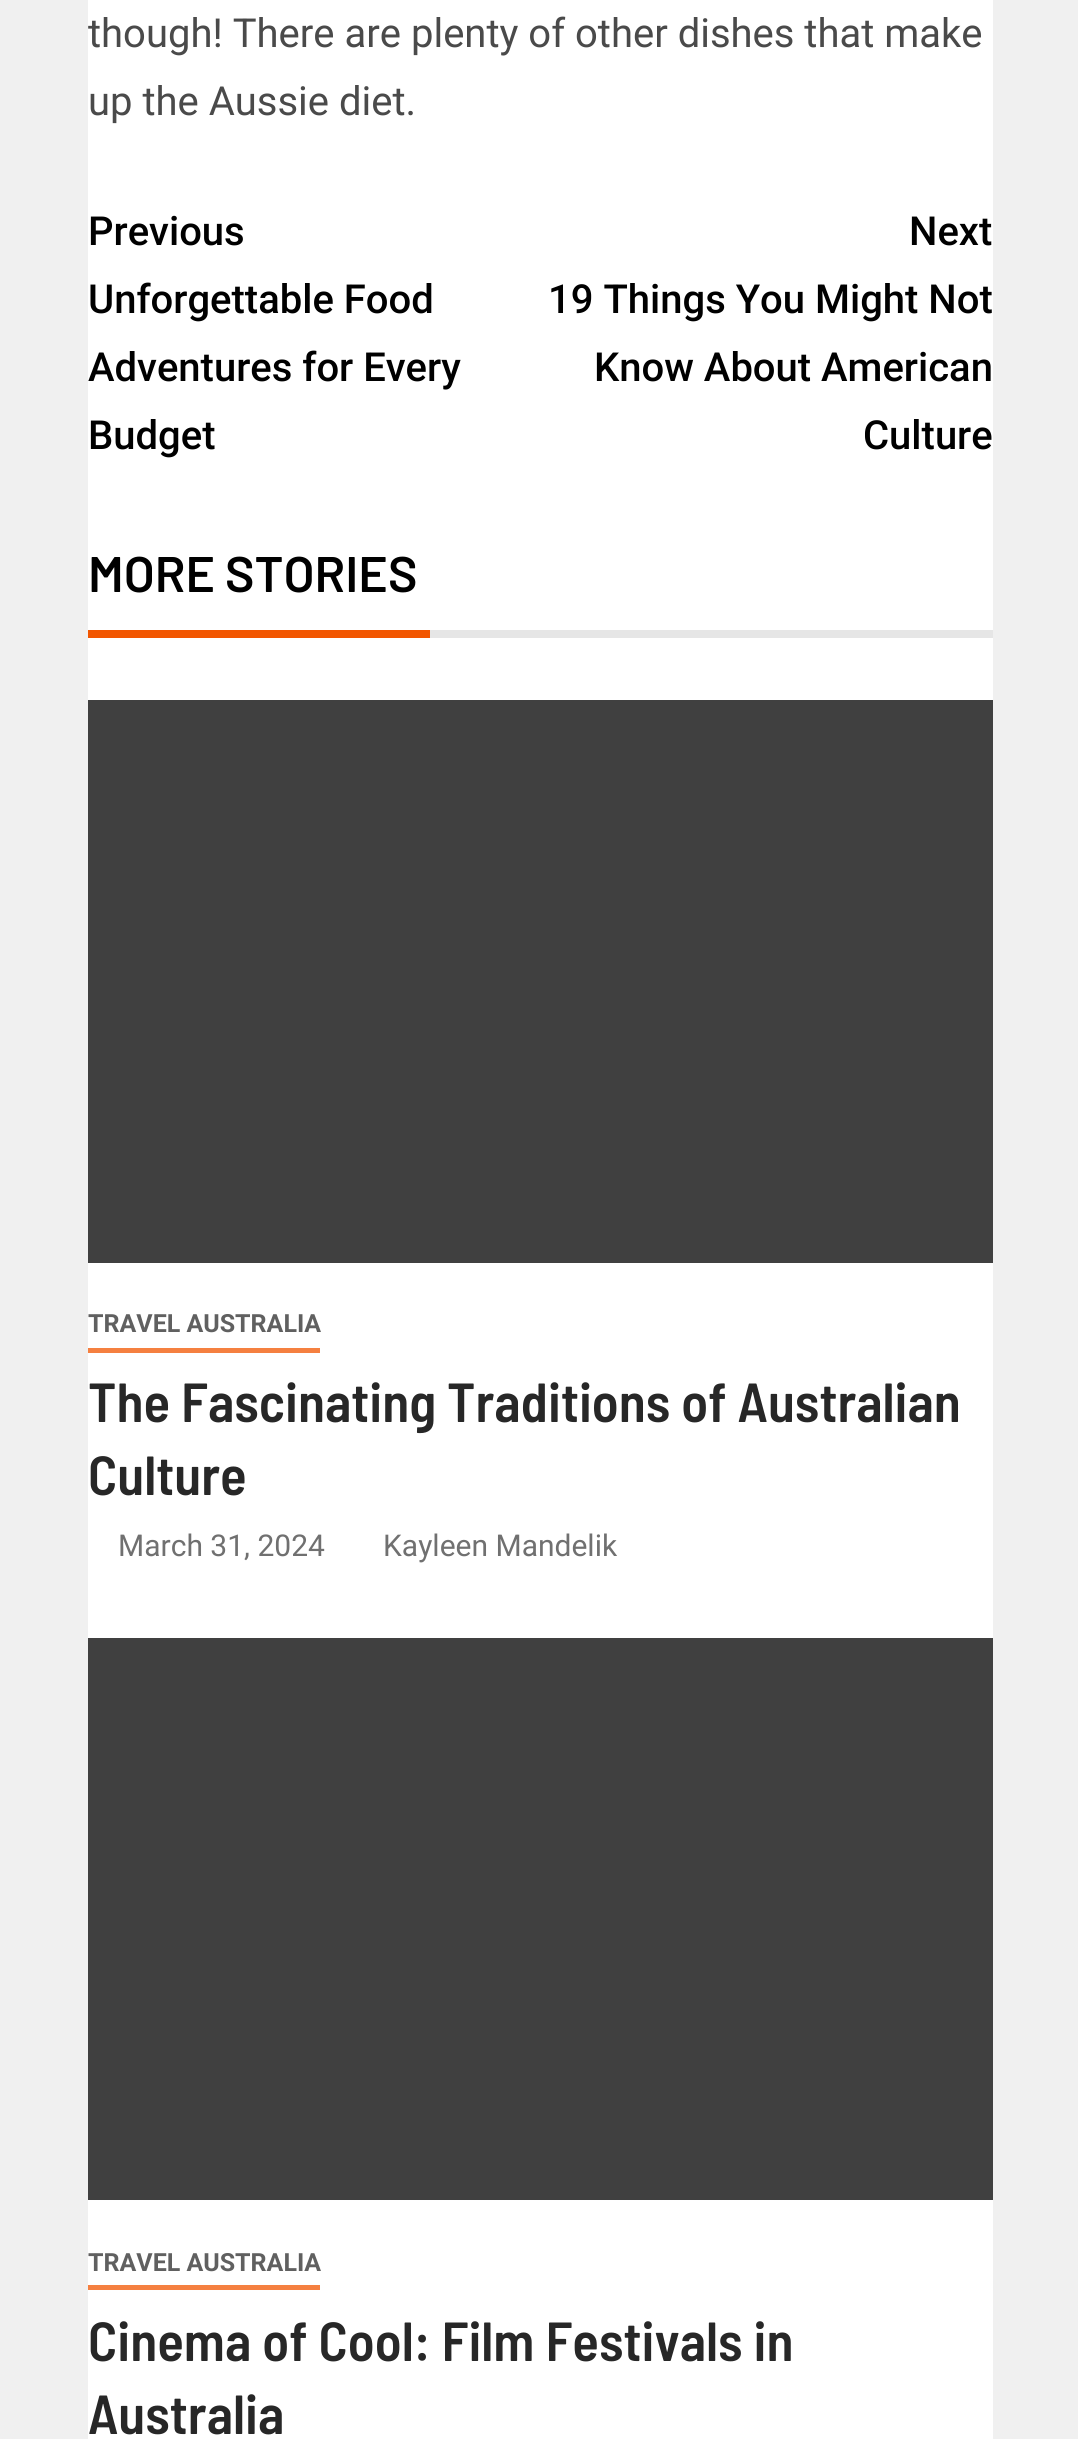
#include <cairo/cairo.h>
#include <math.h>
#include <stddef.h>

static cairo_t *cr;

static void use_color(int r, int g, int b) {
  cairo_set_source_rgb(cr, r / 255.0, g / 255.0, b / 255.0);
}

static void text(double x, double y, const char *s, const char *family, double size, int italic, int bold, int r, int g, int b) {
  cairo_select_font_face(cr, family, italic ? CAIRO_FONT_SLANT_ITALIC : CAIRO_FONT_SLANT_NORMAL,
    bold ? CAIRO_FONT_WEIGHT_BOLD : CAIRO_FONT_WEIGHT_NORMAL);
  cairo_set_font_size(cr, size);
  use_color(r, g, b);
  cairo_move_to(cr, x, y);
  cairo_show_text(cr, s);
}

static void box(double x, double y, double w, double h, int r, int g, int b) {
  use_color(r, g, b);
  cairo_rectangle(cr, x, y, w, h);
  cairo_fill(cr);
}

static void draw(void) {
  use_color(240, 240, 240);
  cairo_paint(cr);
  box(88, 0, 905, 2439, 255, 255, 255);
  box(88, 630, 342, 8, 242, 86, 0);
  box(430, 630, 563, 8, 230, 230, 230);
  box(88, 700, 905, 563, 64, 64, 64);
  box(88, 1348, 232, 5, 245, 128, 64);
  box(88, 1638, 905, 562, 64, 64, 64);
  box(88, 2285, 232, 5, 245, 128, 64);
  text(88, 47, "though! There are plenty of other dishes that make", "Roboto", 40, 0, 0, 74, 74, 74);
  text(88, 115, "up the Aussie diet.", "Roboto", 40, 0, 0, 74, 74, 74);
  text(88, 245, "Previous", "Roboto Medium", 40, 0, 0, 0, 0, 0);
  text(88, 313, "Unforgettable Food", "Roboto Medium", 40, 0, 0, 0, 0, 0);
  text(88, 381, "Adventures for Every", "Roboto Medium", 40, 0, 0, 0, 0, 0);
  text(88, 449, "Budget", "Roboto Medium", 40, 0, 0, 0, 0, 0);
  text(909, 245, "Next", "Roboto Medium", 40, 0, 0, 0, 0, 0);
  text(548, 313, "19 Things You Might Not", "Roboto Medium", 40, 0, 0, 0, 0, 0);
  text(594, 381, "Know About American", "Roboto Medium", 40, 0, 0, 0, 0, 0);
  text(863, 449, "Culture", "Roboto Medium", 40, 0, 0, 0, 0, 0);
  text(88, 592, "MORE STORIES", "Barlow SemiBold", 50, 0, 0, 0, 0, 0);
  text(88, 1332, "TRAVEL AUSTRALIA", "Roboto", 25, 0, 1, 96, 96, 96);
  text(88, 1422, "The Fascinating Traditions of Australian", "Barlow Semi Condensed SemiBold", 55, 0, 0, 39, 39, 39);
  text(88, 1495, "Culture", "Barlow Semi Condensed SemiBold", 55, 0, 0, 39, 39, 39);
  text(118, 1556, "March 31, 2024", "Roboto", 30, 0, 0, 112, 112, 112);
  text(383, 1556, "Kayleen Mandelik", "Roboto", 30, 0, 0, 112, 112, 112);
  text(88, 2271, "TRAVEL AUSTRALIA", "Roboto", 25, 0, 1, 96, 96, 96);
  text(88, 2361, "Cinema of Cool: Film Festivals in", "Barlow Semi Condensed SemiBold", 55, 0, 0, 39, 39, 39);
  text(88, 2434, "Australia", "Barlow Semi Condensed SemiBold", 55, 0, 0, 39, 39, 39);
}

int main(void) {
  cairo_surface_t *surface = cairo_image_surface_create(CAIRO_FORMAT_RGB24, 1078, 2439);
  cr = cairo_create(surface);
  cairo_font_options_t *options = cairo_font_options_create();
  cairo_font_options_set_hint_metrics(options, CAIRO_HINT_METRICS_OFF);
  cairo_font_options_set_hint_style(options, CAIRO_HINT_STYLE_NONE);
  cairo_set_font_options(cr, options);
  cairo_set_miter_limit(cr, 4);
  draw();
  cairo_surface_write_to_png(surface, "out.png");
  cairo_font_options_destroy(options);
  cairo_destroy(cr);
  cairo_surface_destroy(surface);
  return 0;
}
